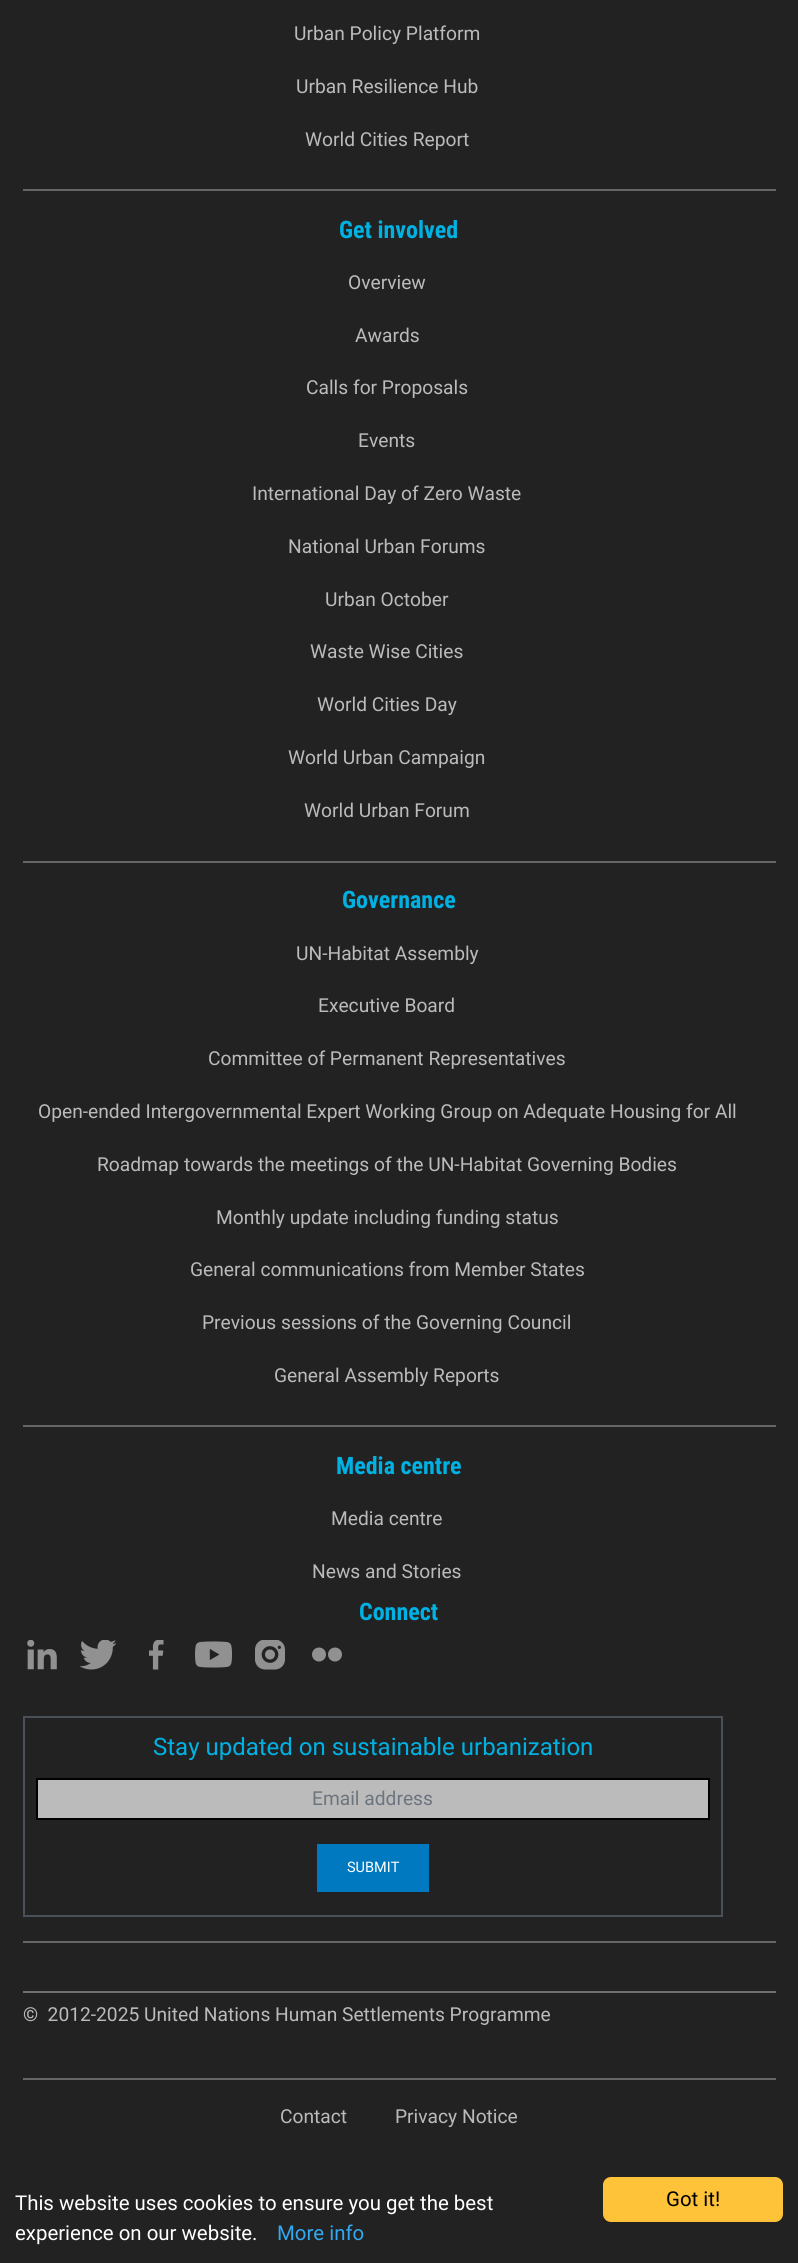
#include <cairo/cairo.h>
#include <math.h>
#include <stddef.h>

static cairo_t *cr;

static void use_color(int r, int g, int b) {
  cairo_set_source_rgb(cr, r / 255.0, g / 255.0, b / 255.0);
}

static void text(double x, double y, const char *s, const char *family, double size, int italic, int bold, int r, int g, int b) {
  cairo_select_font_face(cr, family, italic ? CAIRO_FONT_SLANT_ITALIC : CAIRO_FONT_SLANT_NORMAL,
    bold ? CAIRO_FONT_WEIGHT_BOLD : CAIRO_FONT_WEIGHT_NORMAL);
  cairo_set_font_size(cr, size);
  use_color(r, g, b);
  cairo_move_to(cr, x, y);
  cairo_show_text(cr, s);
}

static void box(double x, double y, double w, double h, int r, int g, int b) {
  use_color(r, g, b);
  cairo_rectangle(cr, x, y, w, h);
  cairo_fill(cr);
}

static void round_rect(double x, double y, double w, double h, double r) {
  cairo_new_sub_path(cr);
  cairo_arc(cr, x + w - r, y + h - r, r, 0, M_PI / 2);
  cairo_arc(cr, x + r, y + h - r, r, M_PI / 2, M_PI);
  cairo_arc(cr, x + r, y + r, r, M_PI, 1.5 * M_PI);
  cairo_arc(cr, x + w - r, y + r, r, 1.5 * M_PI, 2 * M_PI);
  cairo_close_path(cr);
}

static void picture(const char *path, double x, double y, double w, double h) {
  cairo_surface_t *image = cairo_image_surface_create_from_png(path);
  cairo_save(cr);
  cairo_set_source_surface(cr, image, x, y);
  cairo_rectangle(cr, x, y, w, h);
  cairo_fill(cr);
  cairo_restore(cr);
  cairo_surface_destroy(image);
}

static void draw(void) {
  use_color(34, 34, 34);
  cairo_paint(cr);
  box(23, 189, 753, 2, 102, 102, 102);
  box(23, 861, 753, 2, 102, 102, 102);
  box(23, 1425, 753, 2, 102, 102, 102);
  box(23, 1941, 753, 2, 102, 102, 102);
  picture("img_01.png", 27, 1640, 30, 30);
  picture("img_02.png", 80, 1640, 37, 30);
  picture("img_03.png", 149, 1640, 15, 30);
  picture("img_04.png", 195, 1641, 38, 27);
  picture("img_05.png", 255, 1640, 30, 30);
  use_color(145, 145, 145);
  cairo_arc(cr, 319, 1654.5, 7, 0, 2 * M_PI);
  cairo_fill(cr);
  cairo_arc(cr, 335, 1654.5, 7, 0, 2 * M_PI);
  cairo_fill(cr);
  cairo_rectangle(cr, 24, 1717, 698, 199);
  use_color(73, 80, 87);
  cairo_stroke(cr);
  use_color(187, 187, 187);
  cairo_rectangle(cr, 37, 1779, 672, 40);
  cairo_fill_preserve(cr);
  use_color(0, 0, 0);
  cairo_stroke(cr);
  box(317, 1844, 112, 48, 0, 121, 192);
  box(23, 1991, 753, 2, 112, 113, 115);
  box(23, 2078, 753, 2, 102, 102, 102);
  use_color(254, 195, 57);
  round_rect(603, 2177, 180, 45, 8);
  cairo_fill(cr);
  text(294, 40, "Urban Policy Platform", "Roboto", 19.2, 0, 0, 187, 187, 187);
  text(296, 93, "Urban Resilience Hub", "Roboto", 19.2, 0, 0, 187, 187, 187);
  text(305, 146, "World Cities Report", "Roboto", 19.2, 0, 0, 187, 187, 187);
  text(339, 238, "Get involved", "Roboto Condensed", 24, 0, 1, 0, 178, 227);
  text(348, 289, "Overview", "Roboto", 19.2, 0, 0, 187, 187, 187);
  text(355, 342, "Awards", "Roboto", 19.2, 0, 0, 187, 187, 187);
  text(306, 394, "Calls for Proposals", "Roboto", 19.2, 0, 0, 187, 187, 187);
  text(358, 447, "Events", "Roboto", 19.2, 0, 0, 187, 187, 187);
  text(252, 500, "International Day of Zero Waste", "Roboto", 19.2, 0, 0, 187, 187, 187);
  text(288, 553, "National Urban Forums", "Roboto", 19.2, 0, 0, 187, 187, 187);
  text(325, 606, "Urban October", "Roboto", 19.2, 0, 0, 187, 187, 187);
  text(310, 658, "Waste Wise Cities", "Roboto", 19.2, 0, 0, 187, 187, 187);
  text(317, 711, "World Cities Day", "Roboto", 19.2, 0, 0, 187, 187, 187);
  text(288, 764, "World Urban Campaign", "Roboto", 19.2, 0, 0, 187, 187, 187);
  text(304, 817, "World Urban Forum", "Roboto", 19.2, 0, 0, 187, 187, 187);
  text(342, 908, "Governance", "Roboto Condensed", 24, 0, 1, 0, 178, 227);
  text(296, 960, "UN-Habitat Assembly", "Roboto", 19.2, 0, 0, 187, 187, 187);
  text(318, 1012, "Executive Board", "Roboto", 19.2, 0, 0, 187, 187, 187);
  text(208, 1065, "Committee of Permanent Representatives", "Roboto", 19.2, 0, 0, 187, 187, 187);
  text(38, 1118, "Open-ended Intergovernmental Expert Working Group on Adequate Housing for All", "Roboto", 19.2, 0, 0, 187, 187, 187);
  text(97, 1171, "Roadmap towards the meetings of the UN-Habitat Governing Bodies", "Roboto", 19.2, 0, 0, 187, 187, 187);
  text(216, 1224, "Monthly update including funding status", "Roboto", 19.2, 0, 0, 187, 187, 187);
  text(190, 1276, "General communications from Member States", "Roboto", 19.2, 0, 0, 187, 187, 187);
  text(202, 1329, "Previous sessions of the Governing Council", "Roboto", 19.2, 0, 0, 187, 187, 187);
  text(274, 1382, "General Assembly Reports", "Roboto", 19.2, 0, 0, 187, 187, 187);
  text(336, 1474, "Media centre", "Roboto Condensed", 24, 0, 1, 0, 178, 227);
  text(331, 1525, "Media centre", "Roboto", 19.2, 0, 0, 187, 187, 187);
  text(312, 1578, "News and Stories", "Roboto", 19.2, 0, 0, 187, 187, 187);
  text(359, 1620, "Connect", "Roboto Condensed", 24, 0, 1, 0, 178, 227);
  text(153, 1755, "Stay updated on sustainable urbanization", "Roboto", 24, 0, 0, 0, 178, 227);
  text(312, 1805, "Email address", "Roboto", 19.2, 0, 0, 108, 117, 125);
  text(347, 1872, "SUBMIT", "Roboto", 14.5, 0, 0, 255, 255, 255);
  text(23, 2021, "©  2012-2025 United Nations Human Settlements Programme", "Roboto", 19.2, 0, 0, 187, 187, 187);
  text(280, 2123, "Contact", "Roboto", 19.2, 0, 0, 187, 187, 187);
  text(395, 2123, "Privacy Notice", "Roboto", 19.2, 0, 0, 187, 187, 187);
  text(15, 2210, "This website uses cookies to ensure you get the best", "Roboto", 20.4, 0, 0, 255, 255, 255);
  text(15, 2240, "experience on our website.", "Roboto", 20.4, 0, 0, 255, 255, 255);
  text(277, 2240, "More info", "Roboto", 20.4, 0, 0, 49, 168, 240);
  text(666, 2206, "Got it!", "Roboto", 20.4, 0, 0, 0, 0, 0);
}

int main(void) {
  cairo_surface_t *surface = cairo_image_surface_create(CAIRO_FORMAT_RGB24, 798, 2263);
  cr = cairo_create(surface);
  cairo_font_options_t *options = cairo_font_options_create();
  cairo_font_options_set_hint_metrics(options, CAIRO_HINT_METRICS_OFF);
  cairo_font_options_set_hint_style(options, CAIRO_HINT_STYLE_NONE);
  cairo_set_font_options(cr, options);
  cairo_set_miter_limit(cr, 4);
  draw();
  cairo_surface_write_to_png(surface, "out.png");
  cairo_font_options_destroy(options);
  cairo_destroy(cr);
  cairo_surface_destroy(surface);
  return 0;
}
